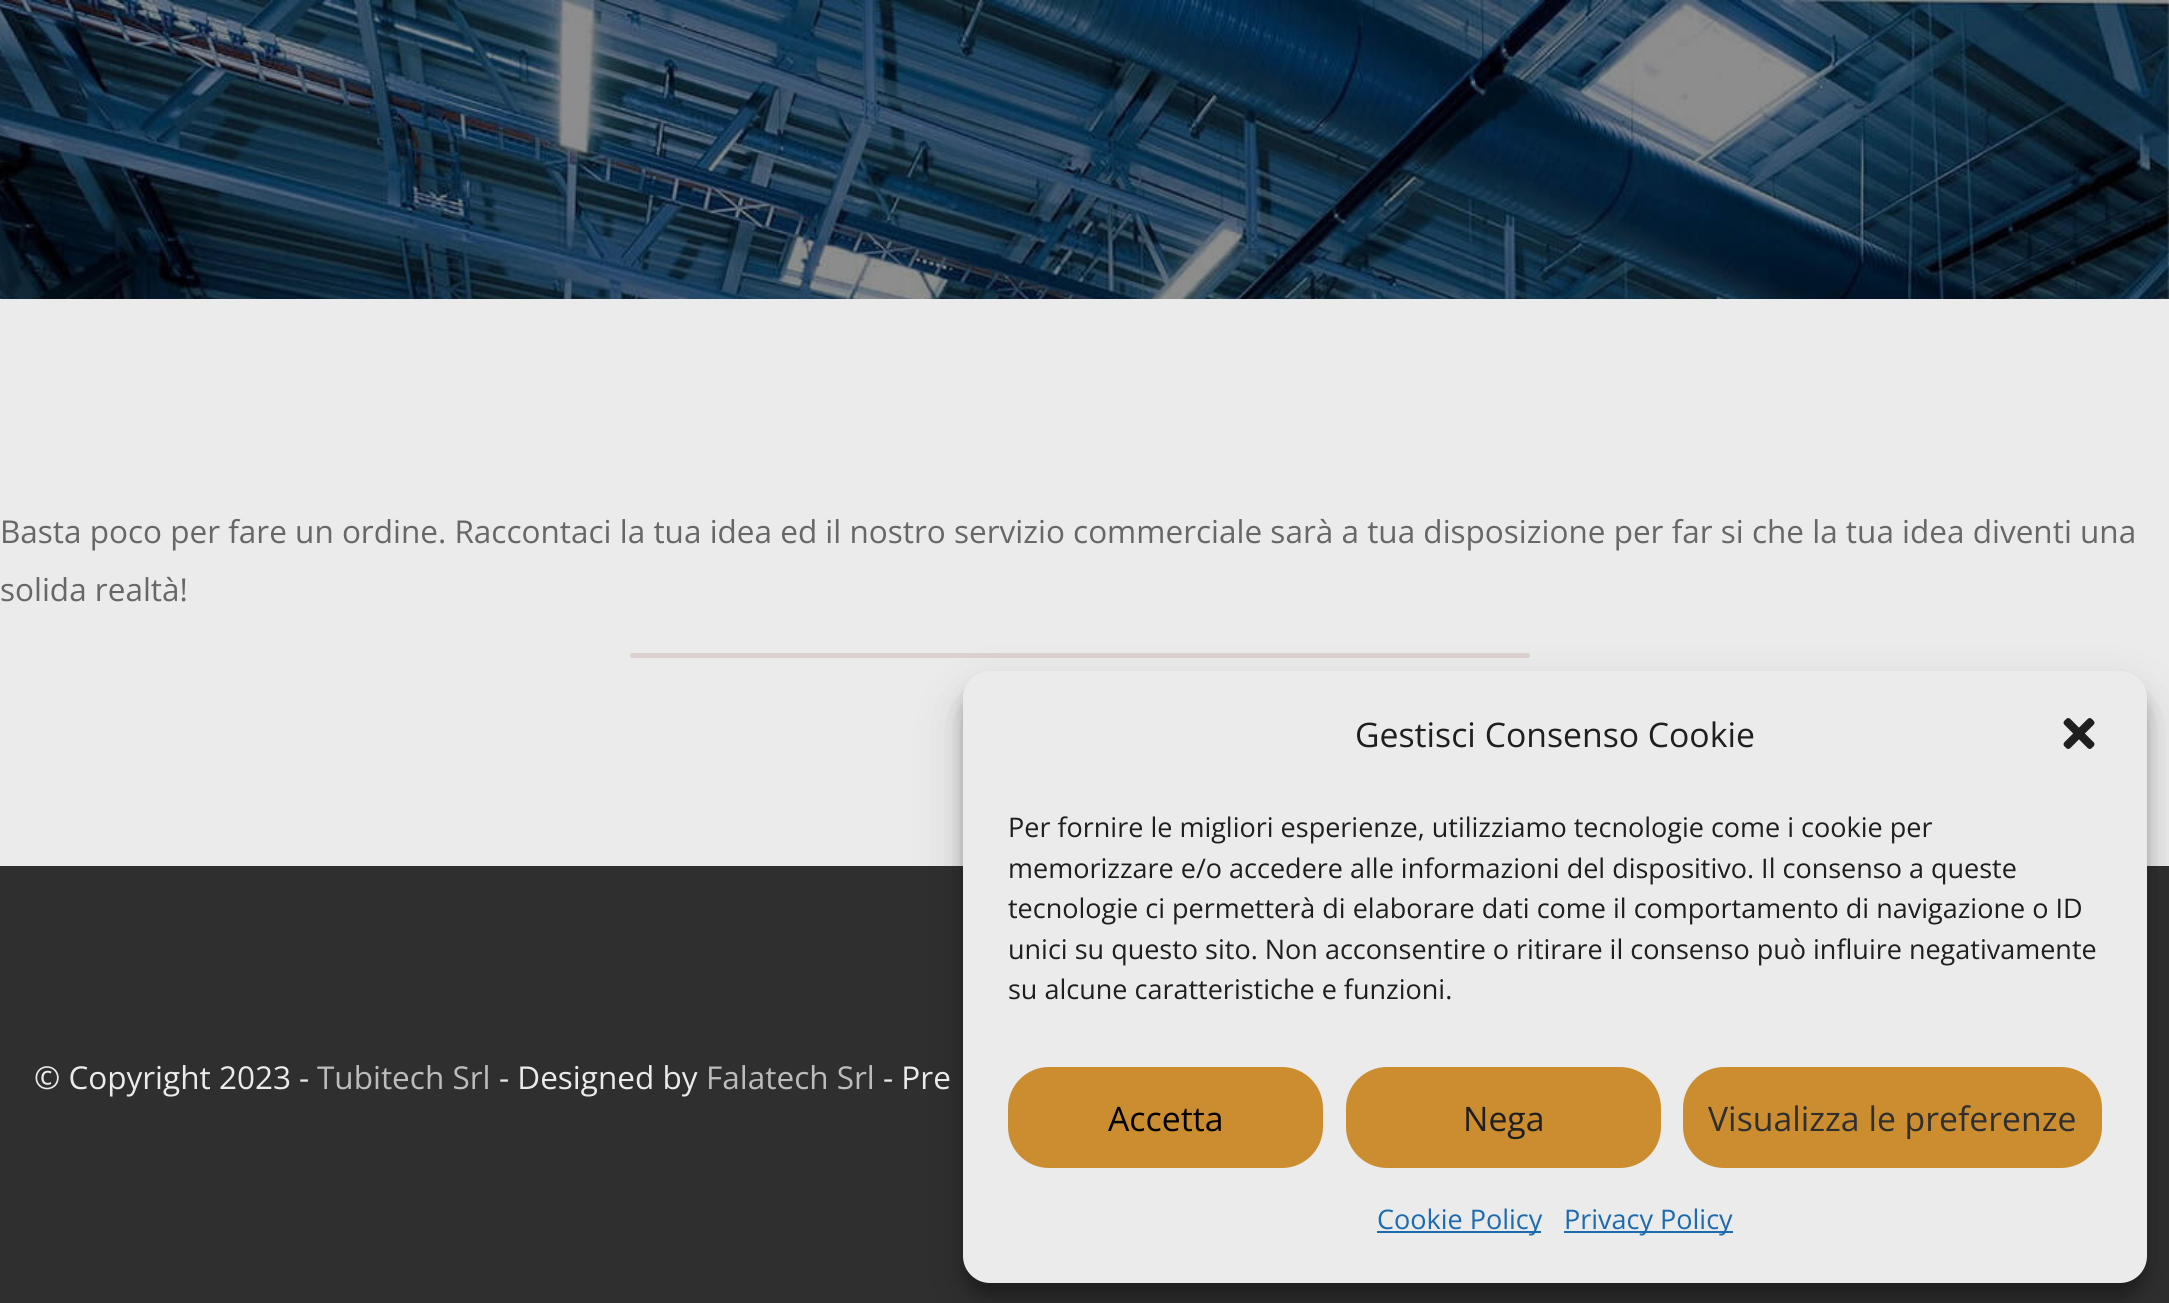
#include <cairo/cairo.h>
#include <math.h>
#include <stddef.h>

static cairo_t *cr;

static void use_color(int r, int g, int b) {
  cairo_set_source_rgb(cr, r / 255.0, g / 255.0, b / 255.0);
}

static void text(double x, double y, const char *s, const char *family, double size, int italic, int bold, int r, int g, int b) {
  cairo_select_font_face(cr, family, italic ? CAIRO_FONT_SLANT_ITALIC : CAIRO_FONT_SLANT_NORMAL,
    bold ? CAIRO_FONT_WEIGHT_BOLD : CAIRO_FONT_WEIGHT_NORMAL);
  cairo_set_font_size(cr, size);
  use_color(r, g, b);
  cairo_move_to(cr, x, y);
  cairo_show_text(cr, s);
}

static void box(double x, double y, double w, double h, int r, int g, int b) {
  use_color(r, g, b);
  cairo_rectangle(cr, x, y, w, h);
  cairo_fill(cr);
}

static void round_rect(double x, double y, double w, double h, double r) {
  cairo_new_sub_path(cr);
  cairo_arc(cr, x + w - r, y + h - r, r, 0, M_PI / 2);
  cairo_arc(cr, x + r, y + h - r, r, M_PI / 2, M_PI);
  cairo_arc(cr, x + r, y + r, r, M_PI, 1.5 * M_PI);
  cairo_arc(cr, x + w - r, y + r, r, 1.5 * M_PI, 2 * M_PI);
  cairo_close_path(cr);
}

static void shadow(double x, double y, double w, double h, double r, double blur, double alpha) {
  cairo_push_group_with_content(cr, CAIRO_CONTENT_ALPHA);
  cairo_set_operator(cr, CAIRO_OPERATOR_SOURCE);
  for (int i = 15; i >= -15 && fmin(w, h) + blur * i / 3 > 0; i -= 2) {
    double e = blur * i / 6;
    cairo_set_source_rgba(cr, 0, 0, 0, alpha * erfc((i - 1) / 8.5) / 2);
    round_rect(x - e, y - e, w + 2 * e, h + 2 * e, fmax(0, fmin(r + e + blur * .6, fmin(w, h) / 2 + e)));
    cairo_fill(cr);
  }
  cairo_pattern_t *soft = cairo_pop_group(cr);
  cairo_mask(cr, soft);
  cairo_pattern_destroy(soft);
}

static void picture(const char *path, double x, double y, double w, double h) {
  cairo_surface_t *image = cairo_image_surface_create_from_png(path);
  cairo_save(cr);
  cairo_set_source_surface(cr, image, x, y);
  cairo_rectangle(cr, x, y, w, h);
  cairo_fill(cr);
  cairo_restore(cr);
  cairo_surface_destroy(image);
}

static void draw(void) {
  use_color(235, 235, 235);
  cairo_paint(cr);
  picture("img_01.png", 0, 0, 2169, 299);
  box(0, 866, 2169, 437, 47, 47, 47);
  use_color(0, 0, 0);
  shadow(963, 693, 1184, 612, 27, 22.5, 0.19);
  cairo_set_source_rgba(cr, 0.067, 0.067, 0.067, 0.08);
  round_rect(630, 653, 900, 5, 2.5);
  cairo_fill(cr);
  cairo_set_source_rgba(cr, 0.973, 0.431, 0.306, 0.08);
  round_rect(630, 653, 900, 5, 2.5);
  cairo_fill(cr);
  use_color(0, 0, 0);
  shadow(963, 684, 1184, 612, 27, 7, 0.23);
  use_color(235, 235, 235);
  round_rect(963, 671, 1184, 612, 27);
  cairo_fill(cr);
  picture("img_02.png", 2063, 718, 32, 31);
  use_color(203, 141, 47);
  round_rect(1009, 1068, 313, 99, 40);
  cairo_fill_preserve(cr);
  cairo_stroke(cr);
  round_rect(1347, 1068, 313, 99, 40);
  cairo_fill_preserve(cr);
  cairo_stroke(cr);
  round_rect(1684, 1068, 417, 99, 40);
  cairo_fill_preserve(cr);
  cairo_stroke(cr);
  box(1377, 1231, 164, 2, 28, 106, 175);
  box(1564, 1231, 169, 2, 28, 106, 175);
  text(0, 543, "Basta poco per fare un ordine. Raccontaci la tua idea ed il nostro servizio commerciale sarà a tua disposizione per far si che la tua idea diventi una", "Open Sans", 31.5, 0, 0, 103, 103, 103);
  text(0, 601, "solida realtà!", "Open Sans", 31.5, 0, 0, 103, 103, 103);
  text(34, 1089, "© Copyright 2023 -", "Open Sans", 31.5, 0, 0, 235, 235, 235);
  text(317, 1089, "Tubitech Srl", "Open Sans", 31.5, 0, 0, 188, 188, 188);
  text(499, 1089, "- Designed by", "Open Sans", 31.5, 0, 0, 235, 235, 235);
  text(706, 1089, "Falatech Srl", "Open Sans", 31.5, 0, 0, 188, 188, 188);
  text(883, 1089, "- Pre", "Open Sans", 31.5, 0, 0, 235, 235, 235);
  text(1355, 747, "Gestisci Consenso Cookie", "Open Sans", 33.75, 0, 0, 31, 31, 31);
  text(1008, 837, "Per fornire le migliori esperienze, utilizziamo tecnologie come i cookie per", "Open Sans", 27, 0, 0, 31, 31, 31);
  text(1008, 878, "memorizzare e/o accedere alle informazioni del dispositivo. Il consenso a queste", "Open Sans", 27, 0, 0, 31, 31, 31);
  text(1008, 918, "tecnologie ci permetterà di elaborare dati come il comportamento di navigazione o ID", "Open Sans", 27, 0, 0, 31, 31, 31);
  text(1008, 959, "unici su questo sito. Non acconsentire o ritirare il consenso può influire negativamente", "Open Sans", 27, 0, 0, 31, 31, 31);
  text(1008, 999, "su alcune caratteristiche e funzioni.", "Open Sans", 27, 0, 0, 31, 31, 31);
  text(1108, 1131, "Accetta", "Open Sans", 33.75, 0, 0, 0, 0, 0);
  text(1463, 1131, "Nega", "Open Sans", 33.75, 0, 0, 31, 31, 31);
  text(1708, 1131, "Visualizza le preferenze", "Open Sans", 33.75, 0, 0, 47, 47, 47);
  text(1377, 1229, "Cookie Policy", "Open Sans", 27, 0, 0, 28, 106, 175);
  text(1564, 1229, "Privacy Policy", "Open Sans", 27, 0, 0, 28, 106, 175);
}

int main(void) {
  cairo_surface_t *surface = cairo_image_surface_create(CAIRO_FORMAT_RGB24, 2169, 1303);
  cr = cairo_create(surface);
  cairo_font_options_t *options = cairo_font_options_create();
  cairo_font_options_set_hint_metrics(options, CAIRO_HINT_METRICS_OFF);
  cairo_font_options_set_hint_style(options, CAIRO_HINT_STYLE_NONE);
  cairo_set_font_options(cr, options);
  cairo_set_miter_limit(cr, 4);
  draw();
  cairo_surface_write_to_png(surface, "out.png");
  cairo_font_options_destroy(options);
  cairo_destroy(cr);
  cairo_surface_destroy(surface);
  return 0;
}
